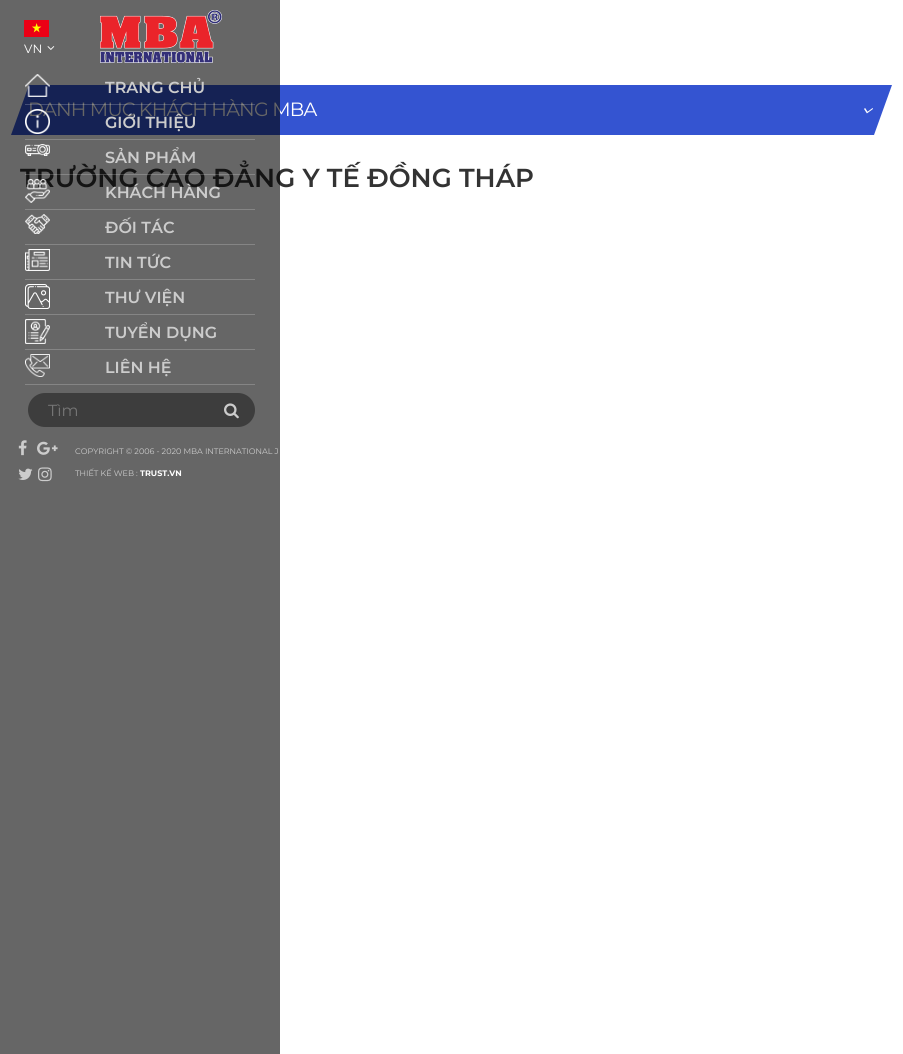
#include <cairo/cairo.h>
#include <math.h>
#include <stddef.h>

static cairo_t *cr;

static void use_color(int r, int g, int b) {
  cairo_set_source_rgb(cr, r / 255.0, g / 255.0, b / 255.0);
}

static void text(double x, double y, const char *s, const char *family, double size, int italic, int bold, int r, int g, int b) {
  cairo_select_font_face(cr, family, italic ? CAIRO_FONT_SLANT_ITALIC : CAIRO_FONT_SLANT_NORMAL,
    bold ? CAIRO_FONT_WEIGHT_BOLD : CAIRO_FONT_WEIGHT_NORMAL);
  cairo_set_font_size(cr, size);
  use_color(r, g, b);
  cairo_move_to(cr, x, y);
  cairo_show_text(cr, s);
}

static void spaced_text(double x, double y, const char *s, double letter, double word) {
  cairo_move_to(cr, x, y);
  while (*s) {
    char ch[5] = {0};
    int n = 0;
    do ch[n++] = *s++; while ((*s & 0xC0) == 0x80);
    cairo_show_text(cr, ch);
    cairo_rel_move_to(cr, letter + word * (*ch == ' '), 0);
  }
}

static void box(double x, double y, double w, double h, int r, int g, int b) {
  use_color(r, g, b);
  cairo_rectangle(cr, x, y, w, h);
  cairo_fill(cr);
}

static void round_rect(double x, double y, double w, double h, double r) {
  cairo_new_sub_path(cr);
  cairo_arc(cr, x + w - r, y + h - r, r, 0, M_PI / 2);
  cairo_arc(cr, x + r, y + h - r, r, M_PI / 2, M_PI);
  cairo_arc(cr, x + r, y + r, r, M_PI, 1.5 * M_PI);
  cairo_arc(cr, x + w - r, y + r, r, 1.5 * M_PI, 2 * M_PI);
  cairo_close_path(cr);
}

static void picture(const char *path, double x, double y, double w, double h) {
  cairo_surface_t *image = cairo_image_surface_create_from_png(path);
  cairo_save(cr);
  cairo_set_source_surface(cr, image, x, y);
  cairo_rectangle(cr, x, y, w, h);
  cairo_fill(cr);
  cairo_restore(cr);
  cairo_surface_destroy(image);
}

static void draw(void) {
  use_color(255, 255, 255);
  cairo_paint(cr);
  use_color(52, 84, 209);
  cairo_new_path(cr);
  cairo_move_to(cr, 29, 85);
  cairo_line_to(cr, 892, 85);
  cairo_line_to(cr, 874, 135);
  cairo_line_to(cr, 11, 135);
  cairo_close_path(cr);
  cairo_fill(cr);
  picture("img_18.png", 864, 108, 9, 6);
  cairo_select_font_face(cr, "Montserrat", CAIRO_FONT_SLANT_NORMAL, CAIRO_FONT_WEIGHT_NORMAL);
  cairo_set_font_size(cr, 19.2);
  use_color(255, 255, 255);
  spaced_text(28, 116, "DANH MỤC KHÁCH HÀNG MBA", -0.8, 0);
  text(20, 187, "TRƯỜNG CAO ĐẲNG Y TẾ ĐỒNG THÁP", "Montserrat SemiBold", 26, 0, 0, 51, 51, 51);
  cairo_set_source_rgba(cr, 0, 0, 0, 0.6);
  cairo_rectangle(cr, 0, 0, 280, 1054);
  cairo_fill(cr);
  picture("img_01.png", 100, 10, 122, 53);
  text(140, 476, "TRUST.VN", "Montserrat", 8, 0, 1, 255, 255, 255);
  text(75, 476, "THIẾT KẾ WEB :", "Montserrat", 8, 0, 0, 204, 204, 204);
  text(75, 454, "COPYRIGHT © 2006 - 2020 MBA INTERNATIONAL J", "Montserrat", 8, 0, 0, 204, 204, 204);
  picture("img_17.png", 38, 467, 14, 15);
  picture("img_16.png", 18, 468, 15, 12);
  picture("img_15.png", 37, 441, 21, 14);
  picture("img_14.png", 18, 440, 9, 16);
  use_color(61, 61, 61);
  round_rect(28, 393, 227, 34, 17);
  cairo_fill(cr);
  picture("img_13.png", 224, 403, 15, 16);
  text(48, 416, "Tìm", "Montserrat", 16, 0, 0, 117, 117, 117);
  box(25, 384, 230, 1, 133, 133, 133);
  picture("img_12.png", 25, 354, 25, 23);
  text(105, 373, "LIÊN HỆ", "Montserrat SemiBold", 16, 0, 0, 204, 204, 204);
  box(25, 349, 230, 1, 133, 133, 133);
  picture("img_11.png", 25, 319, 25, 25);
  text(105, 338, "TUYỂN DỤNG", "Montserrat SemiBold", 16, 0, 0, 204, 204, 204);
  box(25, 314, 230, 1, 133, 133, 133);
  picture("img_10.png", 25, 284, 25, 25);
  text(105, 303, "THƯ VIỆN", "Montserrat SemiBold", 16, 0, 0, 204, 204, 204);
  box(25, 279, 230, 1, 133, 133, 133);
  picture("img_09.png", 25, 249, 25, 22);
  text(105, 268, "TIN TỨC", "Montserrat SemiBold", 16, 0, 0, 204, 204, 204);
  box(25, 244, 230, 1, 133, 133, 133);
  picture("img_08.png", 25, 214, 25, 20);
  text(105, 233, "ĐỐI TÁC", "Montserrat SemiBold", 16, 0, 0, 204, 204, 204);
  box(25, 209, 230, 1, 133, 133, 133);
  picture("img_07.png", 25, 179, 25, 24);
  text(105, 198, "KHÁCH HÀNG", "Montserrat SemiBold", 16, 0, 0, 204, 204, 204);
  cairo_set_source_rgba(cr, 1, 1, 1, 0.2);
  cairo_rectangle(cr, 25, 174, 230, 1);
  cairo_fill(cr);
  picture("img_06.png", 25, 144, 25, 12);
  text(105, 163, "SẢN PHẨM", "Montserrat SemiBold", 16, 0, 0, 204, 204, 204);
  box(25, 139, 230, 1, 133, 133, 133);
  picture("img_05.png", 25, 109, 25, 25);
  text(105, 128, "GIỚI THIỆU", "Montserrat SemiBold", 16, 0, 0, 204, 204, 204);
  cairo_set_source_rgba(cr, 1, 1, 1, 0.2);
  cairo_rectangle(cr, 25, 104, 230, 1);
  cairo_fill(cr);
  picture("img_04.png", 25, 74, 25, 23);
  text(105, 93, "TRANG CHỦ", "Montserrat SemiBold", 16, 0, 0, 204, 204, 204);
  picture("img_02.png", 24, 20, 25, 17);
  picture("img_03.png", 47, 46, 8, 4);
  text(24, 53, "VN", "Montserrat", 12, 0, 0, 255, 255, 255);
}

int main(void) {
  cairo_surface_t *surface = cairo_image_surface_create(CAIRO_FORMAT_RGB24, 903, 1054);
  cr = cairo_create(surface);
  cairo_font_options_t *options = cairo_font_options_create();
  cairo_font_options_set_hint_metrics(options, CAIRO_HINT_METRICS_OFF);
  cairo_font_options_set_hint_style(options, CAIRO_HINT_STYLE_NONE);
  cairo_set_font_options(cr, options);
  cairo_set_miter_limit(cr, 4);
  draw();
  cairo_surface_write_to_png(surface, "out.png");
  cairo_font_options_destroy(options);
  cairo_destroy(cr);
  cairo_surface_destroy(surface);
  return 0;
}
